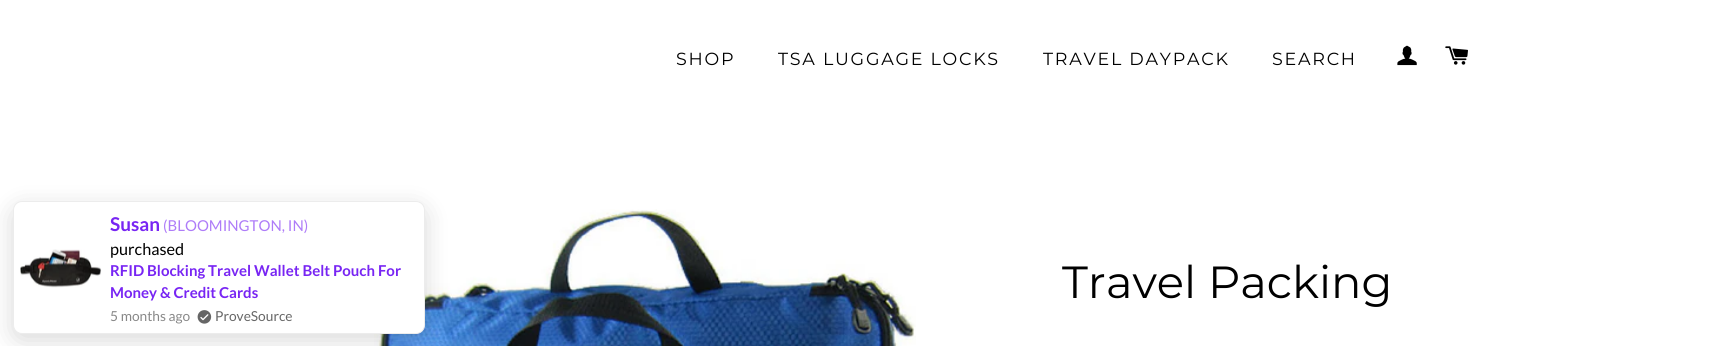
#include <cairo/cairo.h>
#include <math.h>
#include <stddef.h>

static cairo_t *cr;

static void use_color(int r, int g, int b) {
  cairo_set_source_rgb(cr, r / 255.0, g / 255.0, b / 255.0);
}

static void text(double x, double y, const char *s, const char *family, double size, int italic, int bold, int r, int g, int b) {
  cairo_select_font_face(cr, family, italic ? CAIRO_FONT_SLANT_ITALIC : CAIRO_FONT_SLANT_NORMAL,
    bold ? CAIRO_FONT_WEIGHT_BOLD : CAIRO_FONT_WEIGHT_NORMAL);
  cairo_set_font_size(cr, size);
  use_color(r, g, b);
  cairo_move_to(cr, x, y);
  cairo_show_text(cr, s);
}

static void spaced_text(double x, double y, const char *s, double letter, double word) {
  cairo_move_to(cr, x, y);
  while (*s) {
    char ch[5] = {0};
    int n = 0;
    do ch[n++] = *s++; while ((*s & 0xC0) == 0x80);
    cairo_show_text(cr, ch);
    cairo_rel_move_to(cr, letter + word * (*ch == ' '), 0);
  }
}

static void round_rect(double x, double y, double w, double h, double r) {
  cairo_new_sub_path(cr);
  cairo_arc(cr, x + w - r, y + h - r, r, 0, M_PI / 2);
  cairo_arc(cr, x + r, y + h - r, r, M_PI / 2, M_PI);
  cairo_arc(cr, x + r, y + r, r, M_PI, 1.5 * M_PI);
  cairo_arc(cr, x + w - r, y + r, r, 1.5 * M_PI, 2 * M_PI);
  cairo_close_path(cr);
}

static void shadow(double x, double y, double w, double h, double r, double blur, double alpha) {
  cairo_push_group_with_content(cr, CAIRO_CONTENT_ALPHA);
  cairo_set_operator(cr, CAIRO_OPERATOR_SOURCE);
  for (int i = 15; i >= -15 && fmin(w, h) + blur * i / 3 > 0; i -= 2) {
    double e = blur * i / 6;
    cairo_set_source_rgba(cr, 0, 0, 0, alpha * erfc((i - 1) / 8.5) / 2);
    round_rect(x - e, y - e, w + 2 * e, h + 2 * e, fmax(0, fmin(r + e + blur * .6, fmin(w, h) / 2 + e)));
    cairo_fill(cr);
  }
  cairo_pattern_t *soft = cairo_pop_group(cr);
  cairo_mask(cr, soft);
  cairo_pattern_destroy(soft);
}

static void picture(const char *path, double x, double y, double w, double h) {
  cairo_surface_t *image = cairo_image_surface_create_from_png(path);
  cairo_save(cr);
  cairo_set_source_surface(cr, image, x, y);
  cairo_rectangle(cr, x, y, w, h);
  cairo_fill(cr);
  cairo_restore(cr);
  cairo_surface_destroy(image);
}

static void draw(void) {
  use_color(255, 255, 255);
  cairo_paint(cr);
  picture("img_05.png", 374, 209, 542, 137);
  use_color(0, 0, 0);
  shadow(13, 208, 412, 132, 9, 12.5, 0.15);
  use_color(255, 255, 255);
  round_rect(13.5, 201.5, 411, 132, 8.5);
  cairo_fill_preserve(cr);
  use_color(236, 236, 236);
  cairo_set_line_width(cr, 1);
  cairo_stroke(cr);
  picture("img_01.png", 20, 249, 82, 39);
  picture("img_02.png", 197, 310, 15, 14);
  picture("img_03.png", 1397, 45, 20, 21);
  picture("img_04.png", 1445, 46, 23, 19);
  text(110, 231, "Susan", "Lato", 19, 0, 1, 120, 37, 243);
  text(163, 231, "(BLOOMINGTON, IN)", "Lato", 15, 0, 0, 174, 124, 248);
  text(110, 255, "purchased", "Lato", 16.25, 0, 0, 0, 0, 0);
  text(110, 276, "RFID Blocking Travel Wallet Belt Pouch For", "Lato", 15, 0, 1, 120, 37, 243);
  text(110, 298, "Money & Credit Cards", "Lato", 15, 0, 1, 120, 37, 243);
  text(110, 321, "5 months ago", "Lato", 13.75, 0, 0, 136, 136, 136);
  text(215, 321, "ProveSource", "Lato", 13.75, 0, 0, 102, 102, 102);
  cairo_select_font_face(cr, "Montserrat Thin", CAIRO_FONT_SLANT_NORMAL, CAIRO_FONT_WEIGHT_NORMAL);
  cairo_set_font_size(cr, 17.5);
  use_color(0, 0, 0);
  spaced_text(676, 65, "SHOP", 1.75, 0);
  spaced_text(778, 65, "TSA LUGGAGE LOCKS", 1.75, 0);
  spaced_text(1043, 65, "TRAVEL DAYPACK", 1.75, 0);
  spaced_text(1272, 65, "SEARCH", 1.75, 0);
  text(1062, 298, "Travel Packing", "Montserrat Thin", 45, 0, 0, 0, 0, 0);
}

int main(void) {
  cairo_surface_t *surface = cairo_image_surface_create(CAIRO_FORMAT_RGB24, 1722, 346);
  cr = cairo_create(surface);
  cairo_font_options_t *options = cairo_font_options_create();
  cairo_font_options_set_hint_metrics(options, CAIRO_HINT_METRICS_OFF);
  cairo_font_options_set_hint_style(options, CAIRO_HINT_STYLE_NONE);
  cairo_set_font_options(cr, options);
  cairo_set_miter_limit(cr, 4);
  draw();
  cairo_surface_write_to_png(surface, "out.png");
  cairo_font_options_destroy(options);
  cairo_destroy(cr);
  cairo_surface_destroy(surface);
  return 0;
}
